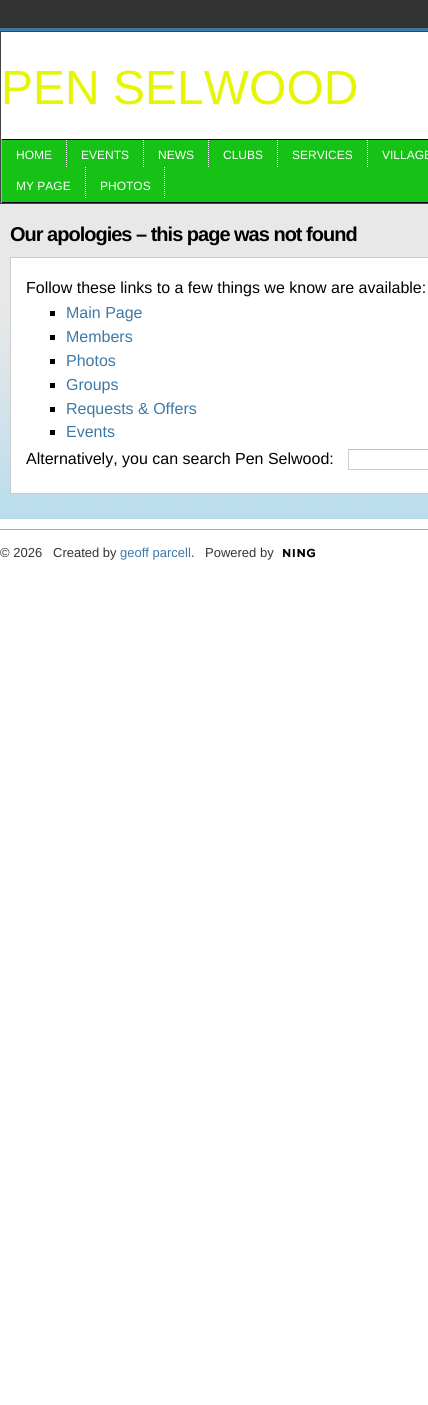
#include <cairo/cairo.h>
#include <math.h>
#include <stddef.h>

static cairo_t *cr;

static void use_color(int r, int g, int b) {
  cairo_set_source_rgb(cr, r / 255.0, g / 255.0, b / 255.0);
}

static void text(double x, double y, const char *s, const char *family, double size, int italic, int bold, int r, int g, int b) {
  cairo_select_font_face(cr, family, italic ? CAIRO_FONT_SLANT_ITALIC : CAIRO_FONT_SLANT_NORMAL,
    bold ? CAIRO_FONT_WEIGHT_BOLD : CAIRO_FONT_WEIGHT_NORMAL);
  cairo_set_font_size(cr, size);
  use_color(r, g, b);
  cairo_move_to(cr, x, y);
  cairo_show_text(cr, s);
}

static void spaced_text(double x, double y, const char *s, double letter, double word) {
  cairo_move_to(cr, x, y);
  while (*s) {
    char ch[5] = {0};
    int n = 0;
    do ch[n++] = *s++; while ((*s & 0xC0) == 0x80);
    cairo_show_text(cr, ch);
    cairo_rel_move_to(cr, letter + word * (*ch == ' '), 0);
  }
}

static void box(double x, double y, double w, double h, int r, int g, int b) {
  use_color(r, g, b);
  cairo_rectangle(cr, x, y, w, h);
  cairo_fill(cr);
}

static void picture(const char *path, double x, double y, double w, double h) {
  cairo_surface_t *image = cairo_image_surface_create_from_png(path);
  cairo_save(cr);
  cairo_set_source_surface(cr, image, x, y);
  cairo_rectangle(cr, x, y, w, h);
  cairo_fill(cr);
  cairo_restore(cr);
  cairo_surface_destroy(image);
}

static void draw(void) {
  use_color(255, 255, 255);
  cairo_paint(cr);
  box(0, 0, 428, 28, 51, 51, 51);
  box(0, 28, 428, 3, 60, 121, 167);
  cairo_rectangle(cr, 0.5, 31.5, 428, 172);
  use_color(68, 68, 68);
  cairo_set_line_width(cr, 1);
  cairo_stroke(cr);
  box(2, 140, 426, 62, 21, 194, 21);
  box(1, 139, 427, 1, 0, 1, 8);
  box(1, 202, 427, 1, 0, 1, 8);
  box(1, 139, 1, 64, 170, 170, 170);
  cairo_new_path(cr);
  cairo_move_to(cr, 66.5, 136);
  cairo_line_to(cr, 66.5, 167);
  use_color(255, 255, 255);
  cairo_set_dash(cr, (double[]){1, 1}, 2, 0);
  cairo_stroke(cr);
  cairo_new_path(cr);
  cairo_move_to(cr, 143.5, 136);
  cairo_line_to(cr, 143.5, 167);
  cairo_stroke(cr);
  cairo_new_path(cr);
  cairo_move_to(cr, 208.5, 136);
  cairo_line_to(cr, 208.5, 167);
  cairo_stroke(cr);
  cairo_new_path(cr);
  cairo_move_to(cr, 277.5, 136);
  cairo_line_to(cr, 277.5, 167);
  cairo_stroke(cr);
  cairo_new_path(cr);
  cairo_move_to(cr, 367.5, 136);
  cairo_line_to(cr, 367.5, 167);
  cairo_stroke(cr);
  cairo_new_path(cr);
  cairo_move_to(cr, 85.5, 167);
  cairo_line_to(cr, 85.5, 198);
  cairo_stroke(cr);
  cairo_new_path(cr);
  cairo_move_to(cr, 164.5, 167);
  cairo_line_to(cr, 164.5, 198);
  cairo_stroke(cr);
  box(0, 301, 428, 218, 182, 220, 237);
  picture("img_01.png", 0, 204, 428, 314);
  use_color(255, 255, 255);
  cairo_rectangle(cr, 10.5, 257.5, 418, 236);
  cairo_fill_preserve(cr);
  use_color(204, 204, 204);
  cairo_set_dash(cr, NULL, 0, 0);
  cairo_stroke(cr);
  box(50, 311, 5, 5, 0, 0, 0);
  box(50, 335, 5, 5, 0, 0, 0);
  box(50, 359, 5, 5, 0, 0, 0);
  box(50, 383, 5, 5, 0, 0, 0);
  box(50, 407, 5, 5, 0, 0, 0);
  box(50, 430, 5, 5, 0, 0, 0);
  box(348, 449, 80, 1, 187, 187, 187);
  box(348, 469, 80, 1, 204, 204, 204);
  box(348, 449, 1, 21, 204, 204, 204);
  box(0, 529, 428, 1, 170, 170, 170);
  picture("img_02.png", 283, 548, 32, 10);
  text(1, 104, "PEN SELWOOD", "Liberation Sans", 48, 0, 0, 229, 245, 3);
  text(16, 159, "HOME", "Liberation Sans", 12, 0, 0, 255, 255, 255);
  text(81, 159, "EVENTS", "Liberation Sans", 12, 0, 0, 255, 255, 255);
  text(158, 159, "NEWS", "Liberation Sans", 12, 0, 0, 255, 255, 255);
  text(223, 159, "CLUBS", "Liberation Sans", 12, 0, 0, 255, 255, 255);
  text(292, 159, "SERVICES", "Liberation Sans", 12, 0, 0, 255, 255, 255);
  text(382, 159, "VILLAGE", "Liberation Sans", 12, 0, 0, 255, 255, 255);
  text(16, 190, "MY PAGE", "Liberation Sans", 12, 0, 0, 255, 255, 255);
  text(100, 190, "PHOTOS", "Liberation Sans", 12, 0, 0, 255, 255, 255);
  cairo_select_font_face(cr, "Liberation Sans", CAIRO_FONT_SLANT_NORMAL, CAIRO_FONT_WEIGHT_BOLD);
  cairo_set_font_size(cr, 20);
  use_color(0, 0, 0);
  spaced_text(10, 241, "Our apologies – this page was not found", -1, 0);
  text(26, 293, "Follow these links to a few things we know are available:", "Liberation Sans", 16, 0, 0, 0, 0, 0);
  text(66, 318, "Main Page", "Liberation Sans", 16, 0, 0, 60, 121, 167);
  text(66, 342, "Members", "Liberation Sans", 16, 0, 0, 60, 121, 167);
  text(66, 366, "Photos", "Liberation Sans", 16, 0, 0, 60, 121, 167);
  text(66, 390, "Groups", "Liberation Sans", 16, 0, 0, 60, 121, 167);
  text(66, 414, "Requests & Offers", "Liberation Sans", 16, 0, 0, 60, 121, 167);
  text(66, 437, "Events", "Liberation Sans", 16, 0, 0, 60, 121, 167);
  text(26, 464, "Alternatively, you can search Pen Selwood:", "Liberation Sans", 16, 0, 0, 0, 0, 0);
  text(0, 557, "© 2026", "Liberation Sans", 13, 0, 0, 51, 51, 51);
  text(53, 557, "Created by", "Liberation Sans", 13, 0, 0, 51, 51, 51);
  text(120, 557, "geoff parcell", "Liberation Sans", 13, 0, 0, 60, 121, 167);
  text(191, 557, ".", "Liberation Sans", 13, 0, 0, 51, 51, 51);
  text(205, 557, "Powered by", "Liberation Sans", 13, 0, 0, 51, 51, 51);
}

int main(void) {
  cairo_surface_t *surface = cairo_image_surface_create(CAIRO_FORMAT_RGB24, 428, 1405);
  cr = cairo_create(surface);
  cairo_font_options_t *options = cairo_font_options_create();
  cairo_font_options_set_hint_metrics(options, CAIRO_HINT_METRICS_OFF);
  cairo_font_options_set_hint_style(options, CAIRO_HINT_STYLE_NONE);
  cairo_set_font_options(cr, options);
  cairo_set_miter_limit(cr, 4);
  draw();
  cairo_surface_write_to_png(surface, "out.png");
  cairo_font_options_destroy(options);
  cairo_destroy(cr);
  cairo_surface_destroy(surface);
  return 0;
}
